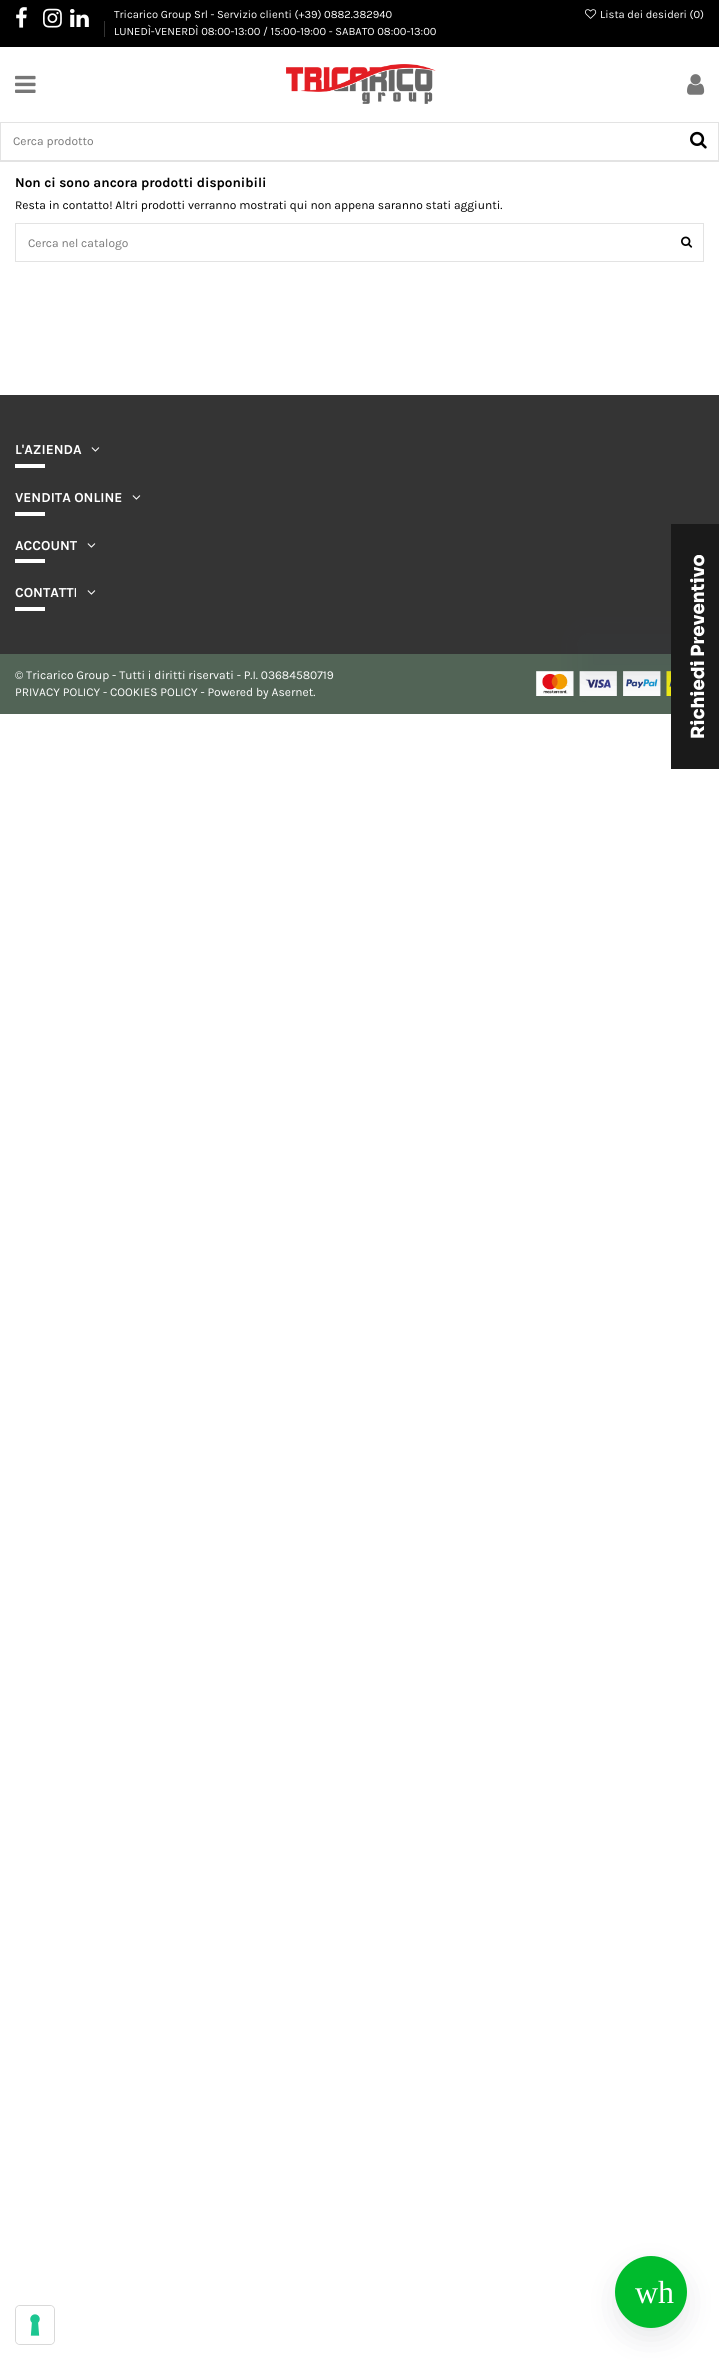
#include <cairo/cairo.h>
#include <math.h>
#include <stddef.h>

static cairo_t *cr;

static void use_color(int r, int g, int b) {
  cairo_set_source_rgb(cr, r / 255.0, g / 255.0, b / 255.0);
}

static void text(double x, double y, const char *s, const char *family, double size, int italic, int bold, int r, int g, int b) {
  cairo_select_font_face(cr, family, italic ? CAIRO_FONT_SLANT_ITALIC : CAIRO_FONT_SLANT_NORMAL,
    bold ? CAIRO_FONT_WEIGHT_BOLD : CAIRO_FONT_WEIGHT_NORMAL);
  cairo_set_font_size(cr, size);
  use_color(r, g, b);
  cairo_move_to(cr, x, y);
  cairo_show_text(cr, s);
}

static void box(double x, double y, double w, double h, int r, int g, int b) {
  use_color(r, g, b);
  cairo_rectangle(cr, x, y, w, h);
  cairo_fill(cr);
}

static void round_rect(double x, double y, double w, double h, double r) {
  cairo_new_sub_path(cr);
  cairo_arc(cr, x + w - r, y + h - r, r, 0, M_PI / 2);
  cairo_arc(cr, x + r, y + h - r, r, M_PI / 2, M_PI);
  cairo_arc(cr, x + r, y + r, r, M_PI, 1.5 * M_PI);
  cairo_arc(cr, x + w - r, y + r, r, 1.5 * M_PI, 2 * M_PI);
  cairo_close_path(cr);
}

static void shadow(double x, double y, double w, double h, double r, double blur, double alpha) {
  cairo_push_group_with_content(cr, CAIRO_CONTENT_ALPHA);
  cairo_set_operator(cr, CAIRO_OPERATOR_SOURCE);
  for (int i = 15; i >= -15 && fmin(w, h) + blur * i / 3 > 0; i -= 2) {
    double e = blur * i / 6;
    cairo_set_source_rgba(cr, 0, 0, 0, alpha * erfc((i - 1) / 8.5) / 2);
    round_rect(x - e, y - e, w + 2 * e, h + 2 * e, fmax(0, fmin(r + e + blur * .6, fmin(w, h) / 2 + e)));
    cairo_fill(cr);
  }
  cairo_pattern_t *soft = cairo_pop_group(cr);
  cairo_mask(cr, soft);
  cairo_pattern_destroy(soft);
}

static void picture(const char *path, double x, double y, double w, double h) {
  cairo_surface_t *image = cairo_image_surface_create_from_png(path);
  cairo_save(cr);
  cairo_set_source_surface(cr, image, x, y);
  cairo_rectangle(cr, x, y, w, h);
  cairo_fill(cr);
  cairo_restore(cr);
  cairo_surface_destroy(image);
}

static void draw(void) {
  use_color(255, 255, 255);
  cairo_paint(cr);
  box(0, 0, 719, 47, 0, 0, 0);
  picture("img_01.png", 16, 7, 11, 21);
  picture("img_02.png", 43, 8, 19, 20);
  picture("img_03.png", 70, 9, 19, 18);
  box(104, 21, 1, 16, 51, 51, 51);
  picture("img_04.png", 585, 9, 12, 10);
  box(0, 161, 719, 1, 227, 227, 227);
  picture("img_05.png", 15, 75, 21, 18);
  picture("img_06.png", 286, 64, 150, 40);
  picture("img_07.png", 687, 74, 18, 21);
  cairo_rectangle(cr, 0.5, 122.5, 718, 38);
  cairo_set_line_width(cr, 1);
  cairo_stroke(cr);
  picture("img_08.png", 690, 131, 17, 18);
  cairo_rectangle(cr, 15.5, 223.5, 688, 38);
  cairo_stroke(cr);
  picture("img_09.png", 681, 236, 12, 12);
  box(0, 395, 719, 259, 52, 52, 52);
  picture("img_10.png", 91, 447, 9, 5);
  box(15, 464, 30, 4, 255, 255, 255);
  picture("img_10.png", 132, 495, 9, 5);
  box(15, 512, 30, 4, 255, 255, 255);
  picture("img_10.png", 87, 543, 9, 5);
  box(15, 559, 30, 4, 255, 255, 255);
  picture("img_10.png", 87, 590, 9, 5);
  box(15, 607, 30, 4, 255, 255, 255);
  box(0, 654, 671, 60, 82, 100, 86);
  picture("img_11.png", 536, 671, 135, 25);
  use_color(54, 61, 77);
  shadow(580, 636, 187, 42, 0, 16, 0.15);
  box(671, 524, 48, 245, 26, 26, 26);
  use_color(54, 61, 77);
  shadow(620, 2272, 62, 62, 31, 16, 0.15);
  use_color(0, 187, 45);
  cairo_arc(cr, 651, 2292, 36, 0, 2 * M_PI);
  cairo_fill(cr);
  round_rect(15.5, 2305.5, 39, 39, 4.5);
  use_color(217, 217, 217);
  cairo_stroke(cr);
  use_color(255, 255, 255);
  round_rect(16, 2306, 38, 38, 4);
  cairo_fill(cr);
  picture("img_12.png", 30, 2314, 10, 22);
  text(114, 18, "Tricarico Group Srl - Servizio clienti (+39) 0882.382940", "Karla", 11.15, 0, 0, 255, 255, 255);
  text(114, 35, "LUNEDÌ-VENERDÌ 08:00-13:00 / 15:00-19:00 - SABATO 08:00-13:00", "Karla", 11.15, 0, 0, 255, 255, 255);
  text(600, 18, "Lista dei desideri (0)", "Karla", 11.15, 0, 0, 255, 255, 255);
  text(13, 145, "Cerca prodotto", "Karla", 12, 0, 0, 119, 119, 119);
  text(15, 187, "Non ci sono ancora prodotti disponibili", "Karla", 13.5, 0, 1, 0, 0, 0);
  text(15, 209, "Resta in contatto! Altri prodotti verranno mostrati qui non appena saranno stati aggiunti.", "Karla", 12, 0, 0, 0, 0, 0);
  text(28, 247, "Cerca nel catalogo", "Karla", 12, 0, 0, 119, 119, 119);
  text(15, 454, "L'AZIENDA", "Karla", 13.75, 0, 1, 255, 255, 255);
  text(15, 502, "VENDITA ONLINE", "Karla", 13.75, 0, 1, 255, 255, 255);
  text(15, 550, "ACCOUNT", "Karla", 13.75, 0, 1, 255, 255, 255);
  text(15, 597, "CONTATTI", "Karla", 13.75, 0, 1, 255, 255, 255);
  text(15, 679, "© Tricarico Group - Tutti i diritti riservati - P.I. 03684580719", "Karla", 12, 0, 0, 255, 255, 255);
  text(15, 696, "PRIVACY POLICY - COOKIES POLICY - Powered by Asernet.", "Karla", 12, 0, 0, 255, 255, 255);
  cairo_save(cr);
  cairo_translate(cr, 704, 739);
  cairo_rotate(cr, -90 * M_PI / 180);
  text(0, 0, "Richiedi Preventivo", "Sora ExtraBold", 18, 0, 0, 255, 255, 255);
  cairo_restore(cr);
  text(635, 2303, "wh", "Liberation Serif", 32, 0, 0, 255, 255, 255);
}

int main(void) {
  cairo_surface_t *surface = cairo_image_surface_create(CAIRO_FORMAT_RGB24, 719, 2360);
  cr = cairo_create(surface);
  cairo_font_options_t *options = cairo_font_options_create();
  cairo_font_options_set_hint_metrics(options, CAIRO_HINT_METRICS_OFF);
  cairo_font_options_set_hint_style(options, CAIRO_HINT_STYLE_NONE);
  cairo_set_font_options(cr, options);
  cairo_set_miter_limit(cr, 4);
  draw();
  cairo_surface_write_to_png(surface, "out.png");
  cairo_font_options_destroy(options);
  cairo_destroy(cr);
  cairo_surface_destroy(surface);
  return 0;
}
